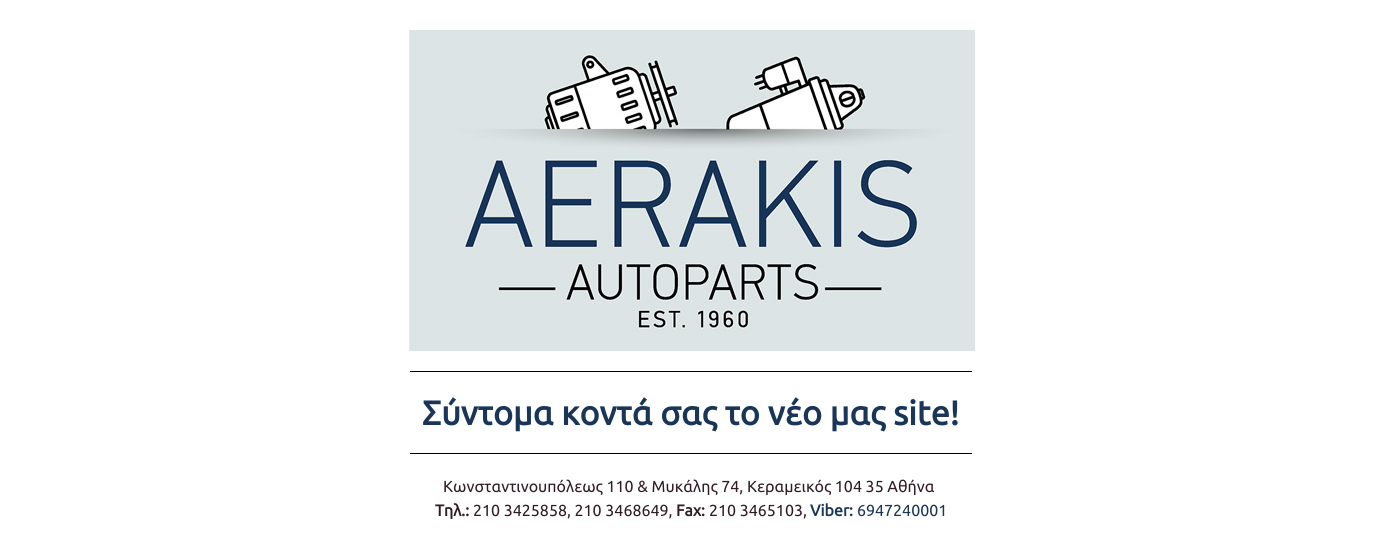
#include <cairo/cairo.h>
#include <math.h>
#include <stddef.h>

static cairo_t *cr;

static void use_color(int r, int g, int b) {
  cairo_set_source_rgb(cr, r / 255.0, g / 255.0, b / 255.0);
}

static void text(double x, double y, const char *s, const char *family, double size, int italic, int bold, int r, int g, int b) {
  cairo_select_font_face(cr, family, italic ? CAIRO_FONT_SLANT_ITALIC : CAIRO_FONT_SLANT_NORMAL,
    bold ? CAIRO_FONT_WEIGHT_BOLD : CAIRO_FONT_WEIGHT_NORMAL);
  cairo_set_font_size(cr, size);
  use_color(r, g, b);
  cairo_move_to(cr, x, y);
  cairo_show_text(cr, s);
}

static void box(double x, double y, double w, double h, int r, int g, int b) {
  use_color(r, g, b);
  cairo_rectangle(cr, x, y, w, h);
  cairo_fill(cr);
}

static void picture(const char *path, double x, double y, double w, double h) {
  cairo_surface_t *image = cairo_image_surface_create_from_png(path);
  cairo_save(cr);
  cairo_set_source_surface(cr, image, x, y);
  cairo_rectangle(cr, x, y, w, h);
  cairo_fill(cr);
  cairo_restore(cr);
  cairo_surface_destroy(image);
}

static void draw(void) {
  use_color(255, 255, 255);
  cairo_paint(cr);
  picture("img_01.png", 409, 30, 566, 321);
  box(410, 371, 562, 1, 0, 0, 0);
  box(410, 453, 562, 1, 0, 0, 0);
  text(422, 425, "Σύντομα κοντά σας το νέο μας site!", "Ubuntu", 34, 0, 1, 25, 54, 89);
  text(443, 492, "Κωνσταντινουπόλεως 110 & Μυκάλης 74, Κεραμεικός 104 35 Αθήνα", "Ubuntu", 16, 0, 0, 50, 27, 38);
  text(435, 516, "Τηλ.:", "Ubuntu", 16, 0, 1, 50, 27, 38);
  text(473, 516, "210 3425858, 210 3468649,", "Ubuntu", 16, 0, 0, 50, 27, 38);
  text(676, 516, "Fax:", "Ubuntu", 16, 0, 1, 50, 27, 38);
  text(709, 516, "210 3465103,", "Ubuntu", 16, 0, 0, 50, 27, 38);
  text(810, 516, "Viber:", "Ubuntu", 16, 0, 1, 25, 54, 89);
  text(857, 516, "6947240001", "Ubuntu", 16, 0, 0, 25, 54, 89);
}

int main(void) {
  cairo_surface_t *surface = cairo_image_surface_create(CAIRO_FORMAT_RGB24, 1382, 536);
  cr = cairo_create(surface);
  cairo_font_options_t *options = cairo_font_options_create();
  cairo_font_options_set_hint_metrics(options, CAIRO_HINT_METRICS_OFF);
  cairo_font_options_set_hint_style(options, CAIRO_HINT_STYLE_NONE);
  cairo_set_font_options(cr, options);
  cairo_set_miter_limit(cr, 4);
  draw();
  cairo_surface_write_to_png(surface, "out.png");
  cairo_font_options_destroy(options);
  cairo_destroy(cr);
  cairo_surface_destroy(surface);
  return 0;
}
